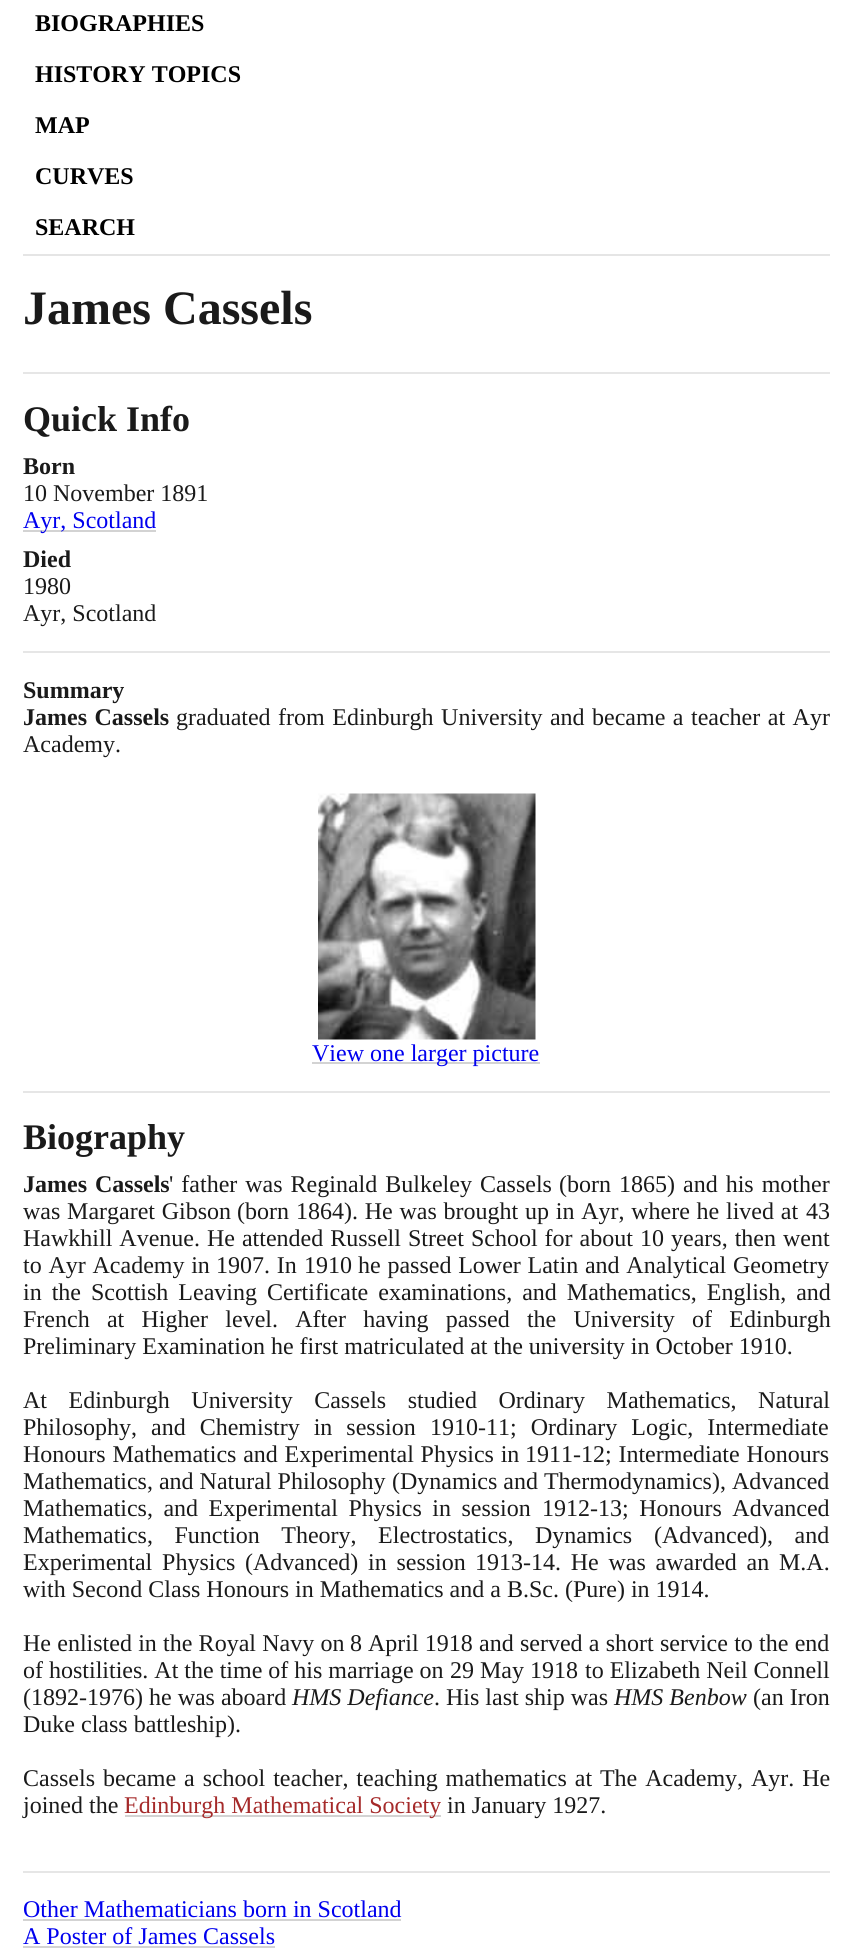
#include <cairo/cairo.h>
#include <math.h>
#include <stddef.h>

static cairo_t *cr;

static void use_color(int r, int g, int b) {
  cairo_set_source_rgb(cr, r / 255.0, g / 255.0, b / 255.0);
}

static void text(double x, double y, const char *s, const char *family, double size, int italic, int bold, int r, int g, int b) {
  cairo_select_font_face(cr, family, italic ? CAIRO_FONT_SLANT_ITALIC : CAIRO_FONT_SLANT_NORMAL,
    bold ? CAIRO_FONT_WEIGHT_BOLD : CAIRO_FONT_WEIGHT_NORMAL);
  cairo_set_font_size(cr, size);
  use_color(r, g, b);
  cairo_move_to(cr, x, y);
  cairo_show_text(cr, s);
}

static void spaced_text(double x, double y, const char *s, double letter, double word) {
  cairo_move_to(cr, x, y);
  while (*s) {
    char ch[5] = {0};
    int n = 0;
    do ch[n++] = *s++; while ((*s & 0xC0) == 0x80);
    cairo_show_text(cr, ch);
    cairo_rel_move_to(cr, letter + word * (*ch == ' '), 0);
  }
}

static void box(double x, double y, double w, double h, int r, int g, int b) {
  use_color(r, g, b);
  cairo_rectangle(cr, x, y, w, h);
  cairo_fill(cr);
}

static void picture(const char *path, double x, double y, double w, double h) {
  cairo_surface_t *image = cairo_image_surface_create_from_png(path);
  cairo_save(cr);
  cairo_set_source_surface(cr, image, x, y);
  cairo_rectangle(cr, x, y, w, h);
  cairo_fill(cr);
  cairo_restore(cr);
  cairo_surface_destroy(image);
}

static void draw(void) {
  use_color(255, 255, 255);
  cairo_paint(cr);
  box(23, 254, 807, 2, 229, 229, 229);
  box(23, 372, 807, 2, 230, 230, 230);
  box(23, 530, 133, 2, 211, 211, 211);
  box(23, 651, 807, 2, 230, 230, 230);
  picture("img_01.png", 318, 793, 218, 247);
  box(312, 1062, 228, 2, 211, 211, 211);
  box(23, 1091, 807, 2, 230, 230, 230);
  box(125, 1815, 316, 2, 211, 211, 211);
  box(23, 1871, 807, 2, 230, 230, 230);
  box(23, 1919, 378, 2, 211, 211, 211);
  box(23, 1946, 252, 2, 211, 211, 211);
  text(35, 31, "BIOGRAPHIES", "Liberation Serif", 24, 0, 1, 0, 0, 0);
  text(35, 82, "HISTORY TOPICS", "Liberation Serif", 24, 0, 1, 0, 0, 0);
  text(35, 133, "MAP", "Liberation Serif", 24, 0, 1, 0, 0, 0);
  text(35, 184, "CURVES", "Liberation Serif", 24, 0, 1, 0, 0, 0);
  text(35, 235, "SEARCH", "Liberation Serif", 24, 0, 1, 0, 0, 0);
  text(23, 324, "James Cassels", "Liberation Serif", 48, 0, 1, 26, 26, 26);
  text(23, 431, "Quick Info", "Liberation Serif", 36, 0, 1, 26, 26, 26);
  text(23, 474, "Born", "Liberation Serif", 24, 0, 1, 26, 26, 26);
  text(23, 501, "10 November 1891", "Liberation Serif", 24, 0, 0, 26, 26, 26);
  text(23, 528, "Ayr, Scotland", "Liberation Serif", 24, 0, 0, 0, 0, 238);
  text(23, 567, "Died", "Liberation Serif", 24, 0, 1, 26, 26, 26);
  text(23, 594, "1980", "Liberation Serif", 24, 0, 0, 26, 26, 26);
  text(23, 621, "Ayr, Scotland", "Liberation Serif", 24, 0, 0, 26, 26, 26);
  text(23, 698, "Summary", "Liberation Serif", 24, 0, 1, 26, 26, 26);
  spaced_text(23, 725, "James Cassels", 0, 1.5);
  cairo_select_font_face(cr, "Liberation Serif", CAIRO_FONT_SLANT_NORMAL, CAIRO_FONT_WEIGHT_NORMAL);
  spaced_text(176, 725, "graduated from Edinburgh University and became a teacher at Ayr", 0, 1.5);
  text(23, 752, "Academy.", "Liberation Serif", 24, 0, 0, 26, 26, 26);
  text(312, 1061, "View one larger picture", "Liberation Serif", 24, 0, 0, 0, 0, 238);
  text(23, 1149, "Biography", "Liberation Serif", 36, 0, 1, 26, 26, 26);
  cairo_set_font_size(cr, 24);
  spaced_text(23, 1192, "James Cassels", 0, 2);
  cairo_select_font_face(cr, "Liberation Serif", CAIRO_FONT_SLANT_NORMAL, CAIRO_FONT_WEIGHT_NORMAL);
  spaced_text(169, 1192, "' father was Reginald Bulkeley Cassels", 0, 2);
  text(559, 1192, "(born", "Liberation Serif", 24, 0, 0, 26, 26, 26);
  text(619, 1192, "1865)", "Liberation Serif", 24, 0, 0, 26, 26, 26);
  spaced_text(683, 1192, "and his mother", 0, 2);
  spaced_text(23, 1219, "was Margaret Gibson", 0, 0.75);
  text(237, 1219, "(born", "Liberation Serif", 24, 0, 0, 26, 26, 26);
  text(296, 1219, "1864)", "Liberation Serif", 24, 0, 0, 26, 26, 26);
  spaced_text(352, 1219, ". He was brought up in Ayr, where he lived at", 0, 0.75);
  text(806, 1219, "43", "Liberation Serif", 24, 0, 0, 26, 26, 26);
  spaced_text(23, 1246, "Hawkhill Avenue. He attended Russell Street School for about", 0, 1);
  text(640, 1246, "10", "Liberation Serif", 24, 0, 0, 26, 26, 26);
  spaced_text(671, 1246, "years, then went", 0, 1);
  spaced_text(23, 1273, "to Ayr Academy in", 0, 0.75);
  text(216, 1273, "1907", "Liberation Serif", 24, 0, 0, 26, 26, 26);
  spaced_text(264, 1273, ". In", 0, 0.75);
  text(304, 1273, "1910", "Liberation Serif", 24, 0, 0, 26, 26, 26);
  spaced_text(358, 1273, "he passed Lower Latin and Analytical Geometry", 0, 0.75);
  spaced_text(23, 1300, "in the Scottish Leaving Certificate examinations, and Mathematics, English, and", 0, 4);
  spaced_text(23, 1327, "French at Higher level. After having passed the University of Edinburgh", 0, 11.25);
  text(23, 1354, "Preliminary Examination he first matriculated at the university in October 1910.", "Liberation Serif", 24, 0, 0, 26, 26, 26);
  spaced_text(23, 1408, "At Edinburgh University Cassels studied Ordinary Mathematics, Natural", 0, 15.5);
  spaced_text(23, 1435, "Philosophy, and Chemistry in session", 0, 8);
  text(430, 1435, "1910-11", "Liberation Serif", 24, 0, 0, 26, 26, 26);
  spaced_text(510, 1435, "; Ordinary Logic, Intermediate", 0, 8);
  spaced_text(23, 1462, "Honours Mathematics and Experimental Physics in", 0, 0.75);
  text(525, 1462, "1911-12", "Liberation Serif", 24, 0, 0, 26, 26, 26);
  spaced_text(605, 1462, "; Intermediate Honours", 0, 0.75);
  text(23, 1489, "Mathematics, and Natural Philosophy", "Liberation Serif", 24, 0, 0, 26, 26, 26);
  text(392, 1489, "(Dynamics and Thermodynamics", "Liberation Serif", 24, 0, 0, 26, 26, 26);
  text(712, 1489, "), Advanced", "Liberation Serif", 24, 0, 0, 26, 26, 26);
  spaced_text(23, 1516, "Mathematics, and Experimental Physics in session", 0, 4.5);
  text(542, 1516, "1912-13", "Liberation Serif", 24, 0, 0, 26, 26, 26);
  spaced_text(622, 1516, "; Honours Advanced", 0, 4.5);
  spaced_text(23, 1543, "Mathematics, Function Theory, Electrostatics, Dynamics", 0, 15.5);
  text(654, 1543, "(Advanced)", "Liberation Serif", 24, 0, 0, 26, 26, 26);
  spaced_text(767, 1543, ", and", 0, 15.5);
  spaced_text(23, 1570, "Experimental Physics", 0, 3.75);
  text(245, 1570, "(Advanced)", "Liberation Serif", 24, 0, 0, 26, 26, 26);
  spaced_text(368, 1570, "in session", 0, 3.75);
  text(475, 1570, "1913-14", "Liberation Serif", 24, 0, 0, 26, 26, 26);
  spaced_text(555, 1570, ". He was awarded an M.A.", 0, 3.75);
  text(23, 1597, "with Second Class Honours in Mathematics and a B.Sc. (Pure) in 1914.", "Liberation Serif", 24, 0, 0, 26, 26, 26);
  spaced_text(23, 1651, "He enlisted in the Royal Navy on", 0, 0.25);
  text(350, 1651, "8 April 1918", "Liberation Serif", 24, 0, 0, 26, 26, 26);
  spaced_text(479, 1651, "and served a short service to the end", 0, 0.25);
  text(23, 1678, "of hostilities. At the time of his marriage on", "Liberation Serif", 24, 0, 0, 26, 26, 26);
  text(450, 1678, "29 May 1918", "Liberation Serif", 24, 0, 0, 26, 26, 26);
  text(585, 1678, "to Elizabeth Neil Connell", "Liberation Serif", 24, 0, 0, 26, 26, 26);
  text(23, 1705, "(1892-1976) he was aboard", "Liberation Serif", 24, 0, 0, 26, 26, 26);
  text(292, 1705, "HMS Defiance", "Liberation Serif", 24, 1, 0, 26, 26, 26);
  text(434, 1705, ". His last ship was", "Liberation Serif", 24, 0, 0, 26, 26, 26);
  text(614, 1705, "HMS Benbow", "Liberation Serif", 24, 1, 0, 26, 26, 26);
  text(753, 1705, "(an Iron", "Liberation Serif", 24, 0, 0, 26, 26, 26);
  text(23, 1732, "Duke class battleship).", "Liberation Serif", 24, 0, 0, 26, 26, 26);
  spaced_text(23, 1786, "Cassels became a school teacher, teaching mathematics at The Academy, Ayr. He", 0, 1.9);
  text(23, 1813, "joined the", "Liberation Serif", 24, 0, 0, 26, 26, 26);
  text(124, 1813, "Edinburgh Mathematical Society", "Liberation Serif", 24, 0, 0, 165, 42, 42);
  text(447, 1813, "in January 1927.", "Liberation Serif", 24, 0, 0, 26, 26, 26);
  text(23, 1917, "Other Mathematicians born in Scotland", "Liberation Serif", 24, 0, 0, 0, 0, 238);
  text(23, 1944, "A Poster of James Cassels", "Liberation Serif", 24, 0, 0, 0, 0, 238);
}

int main(void) {
  cairo_surface_t *surface = cairo_image_surface_create(CAIRO_FORMAT_RGB24, 851, 1953);
  cr = cairo_create(surface);
  cairo_font_options_t *options = cairo_font_options_create();
  cairo_font_options_set_hint_metrics(options, CAIRO_HINT_METRICS_OFF);
  cairo_font_options_set_hint_style(options, CAIRO_HINT_STYLE_NONE);
  cairo_set_font_options(cr, options);
  cairo_set_miter_limit(cr, 4);
  draw();
  cairo_surface_write_to_png(surface, "out.png");
  cairo_font_options_destroy(options);
  cairo_destroy(cr);
  cairo_surface_destroy(surface);
  return 0;
}
